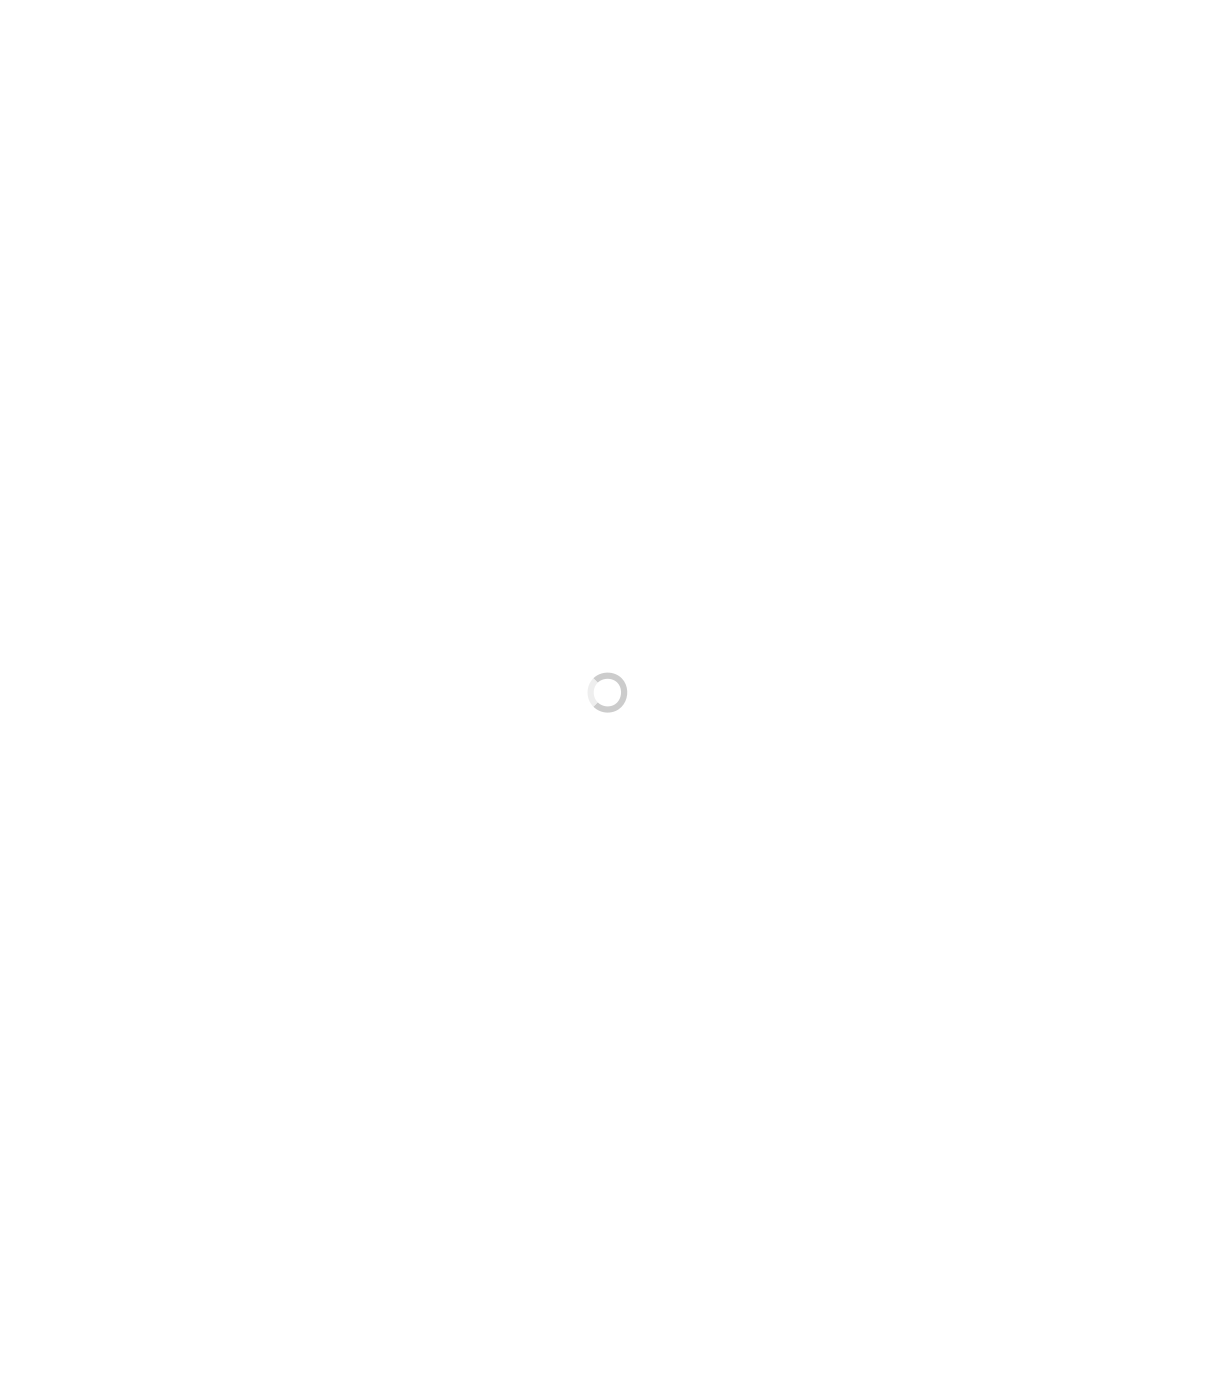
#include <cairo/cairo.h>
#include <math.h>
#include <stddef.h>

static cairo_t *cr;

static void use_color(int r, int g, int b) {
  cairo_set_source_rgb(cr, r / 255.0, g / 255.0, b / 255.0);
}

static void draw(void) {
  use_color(255, 255, 255);
  cairo_paint(cr);
  cairo_new_path(cr);
  cairo_move_to(cr, 595.5, 680.5);
  cairo_curve_to(cr, 599.5, 676.5, 605.5, 675, 611, 676);
  cairo_curve_to(cr, 630.5, 680, 627.5, 709.5, 607.5, 709.5);
  cairo_curve_to(cr, 603, 709.5, 598.5, 707.5, 595.5, 704.5);
  use_color(204, 204, 204);
  cairo_set_line_width(cr, 6.2);
  cairo_stroke(cr);
  cairo_new_path(cr);
  cairo_move_to(cr, 595.5, 704.5);
  cairo_curve_to(cr, 589, 698, 589, 687, 595.5, 680.5);
  use_color(238, 238, 238);
  cairo_stroke(cr);
}

int main(void) {
  cairo_surface_t *surface = cairo_image_surface_create(CAIRO_FORMAT_RGB24, 1215, 1384);
  cr = cairo_create(surface);
  cairo_font_options_t *options = cairo_font_options_create();
  cairo_font_options_set_hint_metrics(options, CAIRO_HINT_METRICS_OFF);
  cairo_font_options_set_hint_style(options, CAIRO_HINT_STYLE_NONE);
  cairo_set_font_options(cr, options);
  cairo_set_miter_limit(cr, 4);
  draw();
  cairo_surface_write_to_png(surface, "out.png");
  cairo_font_options_destroy(options);
  cairo_destroy(cr);
  cairo_surface_destroy(surface);
  return 0;
}
